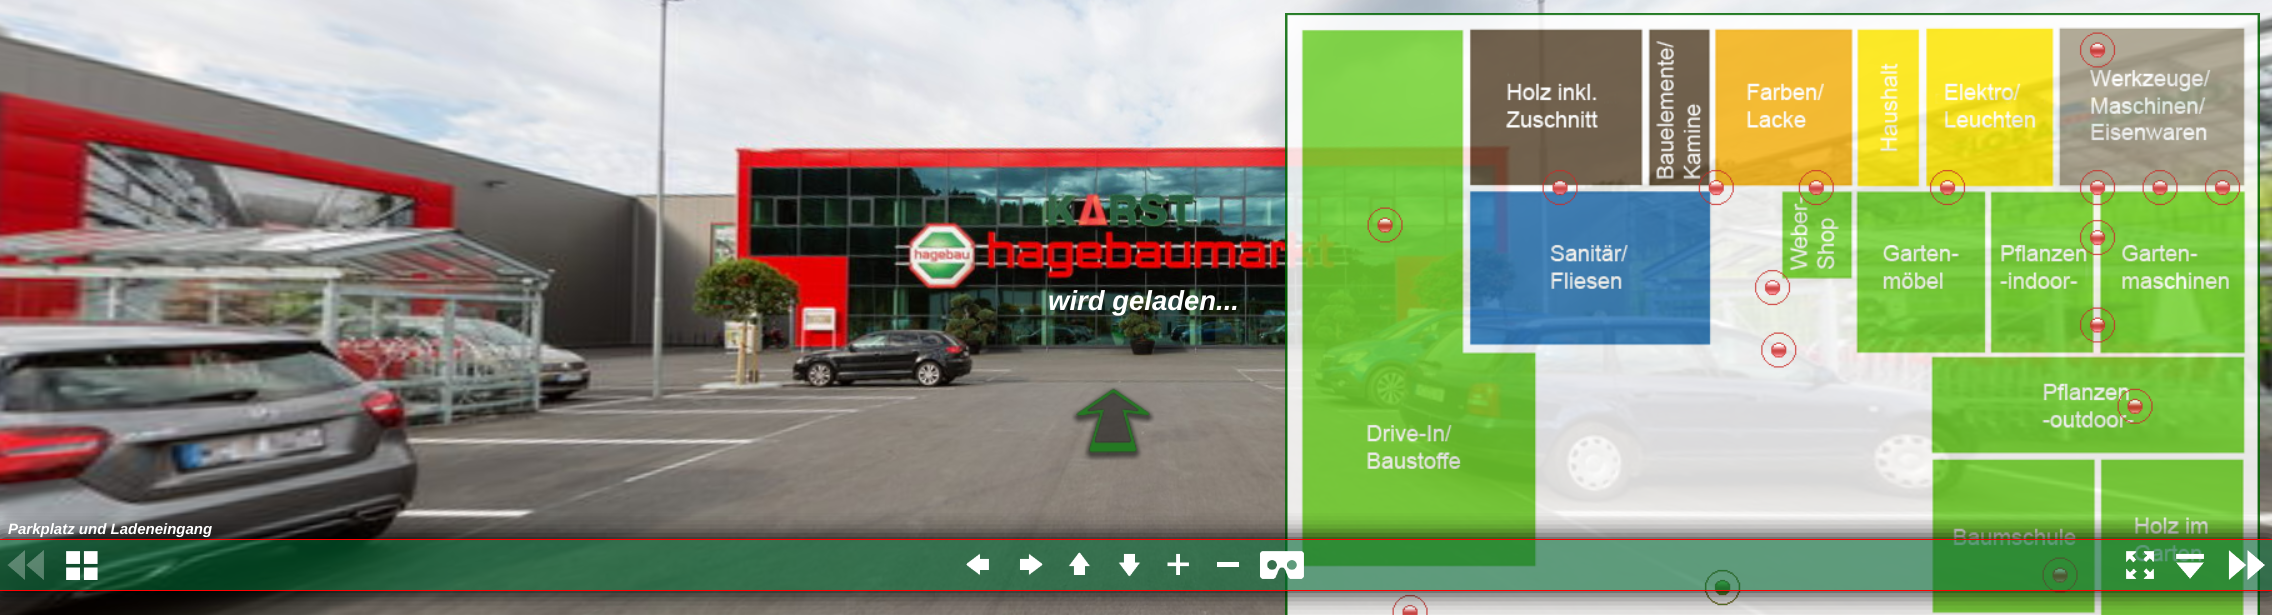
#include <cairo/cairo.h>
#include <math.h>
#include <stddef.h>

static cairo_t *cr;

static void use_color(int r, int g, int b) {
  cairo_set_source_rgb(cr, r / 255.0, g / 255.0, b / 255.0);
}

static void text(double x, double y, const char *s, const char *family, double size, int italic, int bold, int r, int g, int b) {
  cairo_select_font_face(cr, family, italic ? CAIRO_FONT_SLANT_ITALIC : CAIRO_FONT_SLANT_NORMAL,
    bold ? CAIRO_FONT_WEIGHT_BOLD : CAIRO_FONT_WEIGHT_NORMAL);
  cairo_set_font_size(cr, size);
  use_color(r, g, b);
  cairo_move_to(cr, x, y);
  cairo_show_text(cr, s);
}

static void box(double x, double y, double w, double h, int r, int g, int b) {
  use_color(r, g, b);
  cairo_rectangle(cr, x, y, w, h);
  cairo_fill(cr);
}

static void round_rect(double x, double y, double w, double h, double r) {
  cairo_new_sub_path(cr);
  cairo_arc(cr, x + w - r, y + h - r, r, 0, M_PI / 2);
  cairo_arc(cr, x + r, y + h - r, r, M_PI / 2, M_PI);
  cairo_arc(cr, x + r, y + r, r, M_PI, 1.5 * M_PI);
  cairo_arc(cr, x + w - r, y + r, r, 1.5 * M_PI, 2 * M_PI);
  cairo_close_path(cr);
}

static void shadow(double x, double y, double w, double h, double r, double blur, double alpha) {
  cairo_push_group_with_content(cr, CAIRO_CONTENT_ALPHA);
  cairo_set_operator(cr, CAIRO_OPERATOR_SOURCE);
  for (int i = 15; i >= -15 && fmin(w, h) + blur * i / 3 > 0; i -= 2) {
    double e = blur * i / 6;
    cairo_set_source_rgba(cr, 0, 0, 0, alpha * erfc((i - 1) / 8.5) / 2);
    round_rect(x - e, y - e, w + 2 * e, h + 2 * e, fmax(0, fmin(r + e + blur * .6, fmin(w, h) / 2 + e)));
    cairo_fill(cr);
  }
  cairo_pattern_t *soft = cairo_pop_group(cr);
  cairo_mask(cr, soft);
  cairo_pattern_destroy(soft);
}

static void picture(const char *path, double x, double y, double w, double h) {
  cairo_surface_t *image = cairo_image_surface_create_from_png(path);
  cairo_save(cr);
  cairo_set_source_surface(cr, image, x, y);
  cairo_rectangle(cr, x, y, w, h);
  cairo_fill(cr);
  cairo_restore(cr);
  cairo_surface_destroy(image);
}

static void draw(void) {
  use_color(255, 255, 255);
  cairo_paint(cr);
  picture("img_01.png", 0, 0, 2272, 615);
  picture("img_13.png", 1285, 13, 975, 602);
  picture("img_28.png", 1392, 594, 36, 21);
  picture("img_29.png", 1704, 569, 37, 37);
  picture("img_30.png", 1704, 569, 37, 37);
  picture("img_31.png", 2042, 557, 36, 36);
  cairo_save(cr);
  cairo_rectangle(cr, 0, 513, 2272, 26);
  cairo_clip(cr);
  use_color(0, 0, 0);
  shadow(0, 539, 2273, 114, 0, 12.5, 1);
  cairo_restore(cr);
  box(0, 539, 2272, 1, 255, 0, 0);
  cairo_save(cr);
  cairo_rectangle(cr, 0, 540, 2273, 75);
  cairo_clip(cr);
  cairo_rectangle(cr, 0, 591, 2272, 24);
  cairo_clip(cr);
  use_color(0, 0, 0);
  shadow(0, 539, 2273, 52, 0, 12.5, 1);
  cairo_restore(cr);
  cairo_set_source_rgba(cr, 0, 0.4, 0.2, 0.6);
  cairo_rectangle(cr, 0, 540, 2272, 50);
  cairo_fill(cr);
  box(0, 590, 2272, 1, 255, 0, 0);
  picture("img_02.png", 7, 550, 37, 30);
  picture("img_03.png", 66, 551, 32, 29);
  picture("img_04.png", 966, 553, 23, 23);
  picture("img_05.png", 1020, 553, 23, 23);
  picture("img_06.png", 1068, 552, 23, 23);
  picture("img_07.png", 1118, 553, 23, 24);
  picture("img_08.png", 1167, 553, 22, 22);
  box(1217, 562, 22, 5, 255, 255, 255);
  picture("img_09.png", 1260, 551, 44, 28);
  picture("img_10.png", 2126, 551, 28, 28);
  picture("img_11.png", 2176, 553, 28, 26);
  picture("img_12.png", 2228, 550, 37, 30);
  picture("img_14.png", 2079, 32, 37, 36);
  picture("img_15.png", 1542, 169, 36, 37);
  picture("img_16.png", 1698, 169, 36, 37);
  picture("img_17.png", 1798, 169, 36, 37);
  picture("img_18.png", 1929, 169, 37, 37);
  picture("img_19.png", 2079, 169, 37, 37);
  picture("img_20.png", 2142, 169, 36, 37);
  picture("img_21.png", 2204, 169, 37, 37);
  picture("img_22.png", 1367, 207, 36, 36);
  picture("img_23.png", 2079, 219, 37, 37);
  picture("img_24.png", 1754, 269, 37, 37);
  picture("img_25.png", 2079, 307, 37, 36);
  picture("img_26.png", 1761, 332, 36, 36);
  picture("img_27.png", 2117, 388, 36, 36);
  text(1048, 310, "wird geladen...", "Liberation Sans", 27.5, 1, 1, 255, 255, 255);
  text(8, 534, "Parkplatz und Ladeneingang", "Liberation Sans", 15, 1, 1, 255, 255, 255);
}

int main(void) {
  cairo_surface_t *surface = cairo_image_surface_create(CAIRO_FORMAT_RGB24, 2272, 615);
  cr = cairo_create(surface);
  cairo_font_options_t *options = cairo_font_options_create();
  cairo_font_options_set_hint_metrics(options, CAIRO_HINT_METRICS_OFF);
  cairo_font_options_set_hint_style(options, CAIRO_HINT_STYLE_NONE);
  cairo_set_font_options(cr, options);
  cairo_set_miter_limit(cr, 4);
  draw();
  cairo_surface_write_to_png(surface, "out.png");
  cairo_font_options_destroy(options);
  cairo_destroy(cr);
  cairo_surface_destroy(surface);
  return 0;
}
